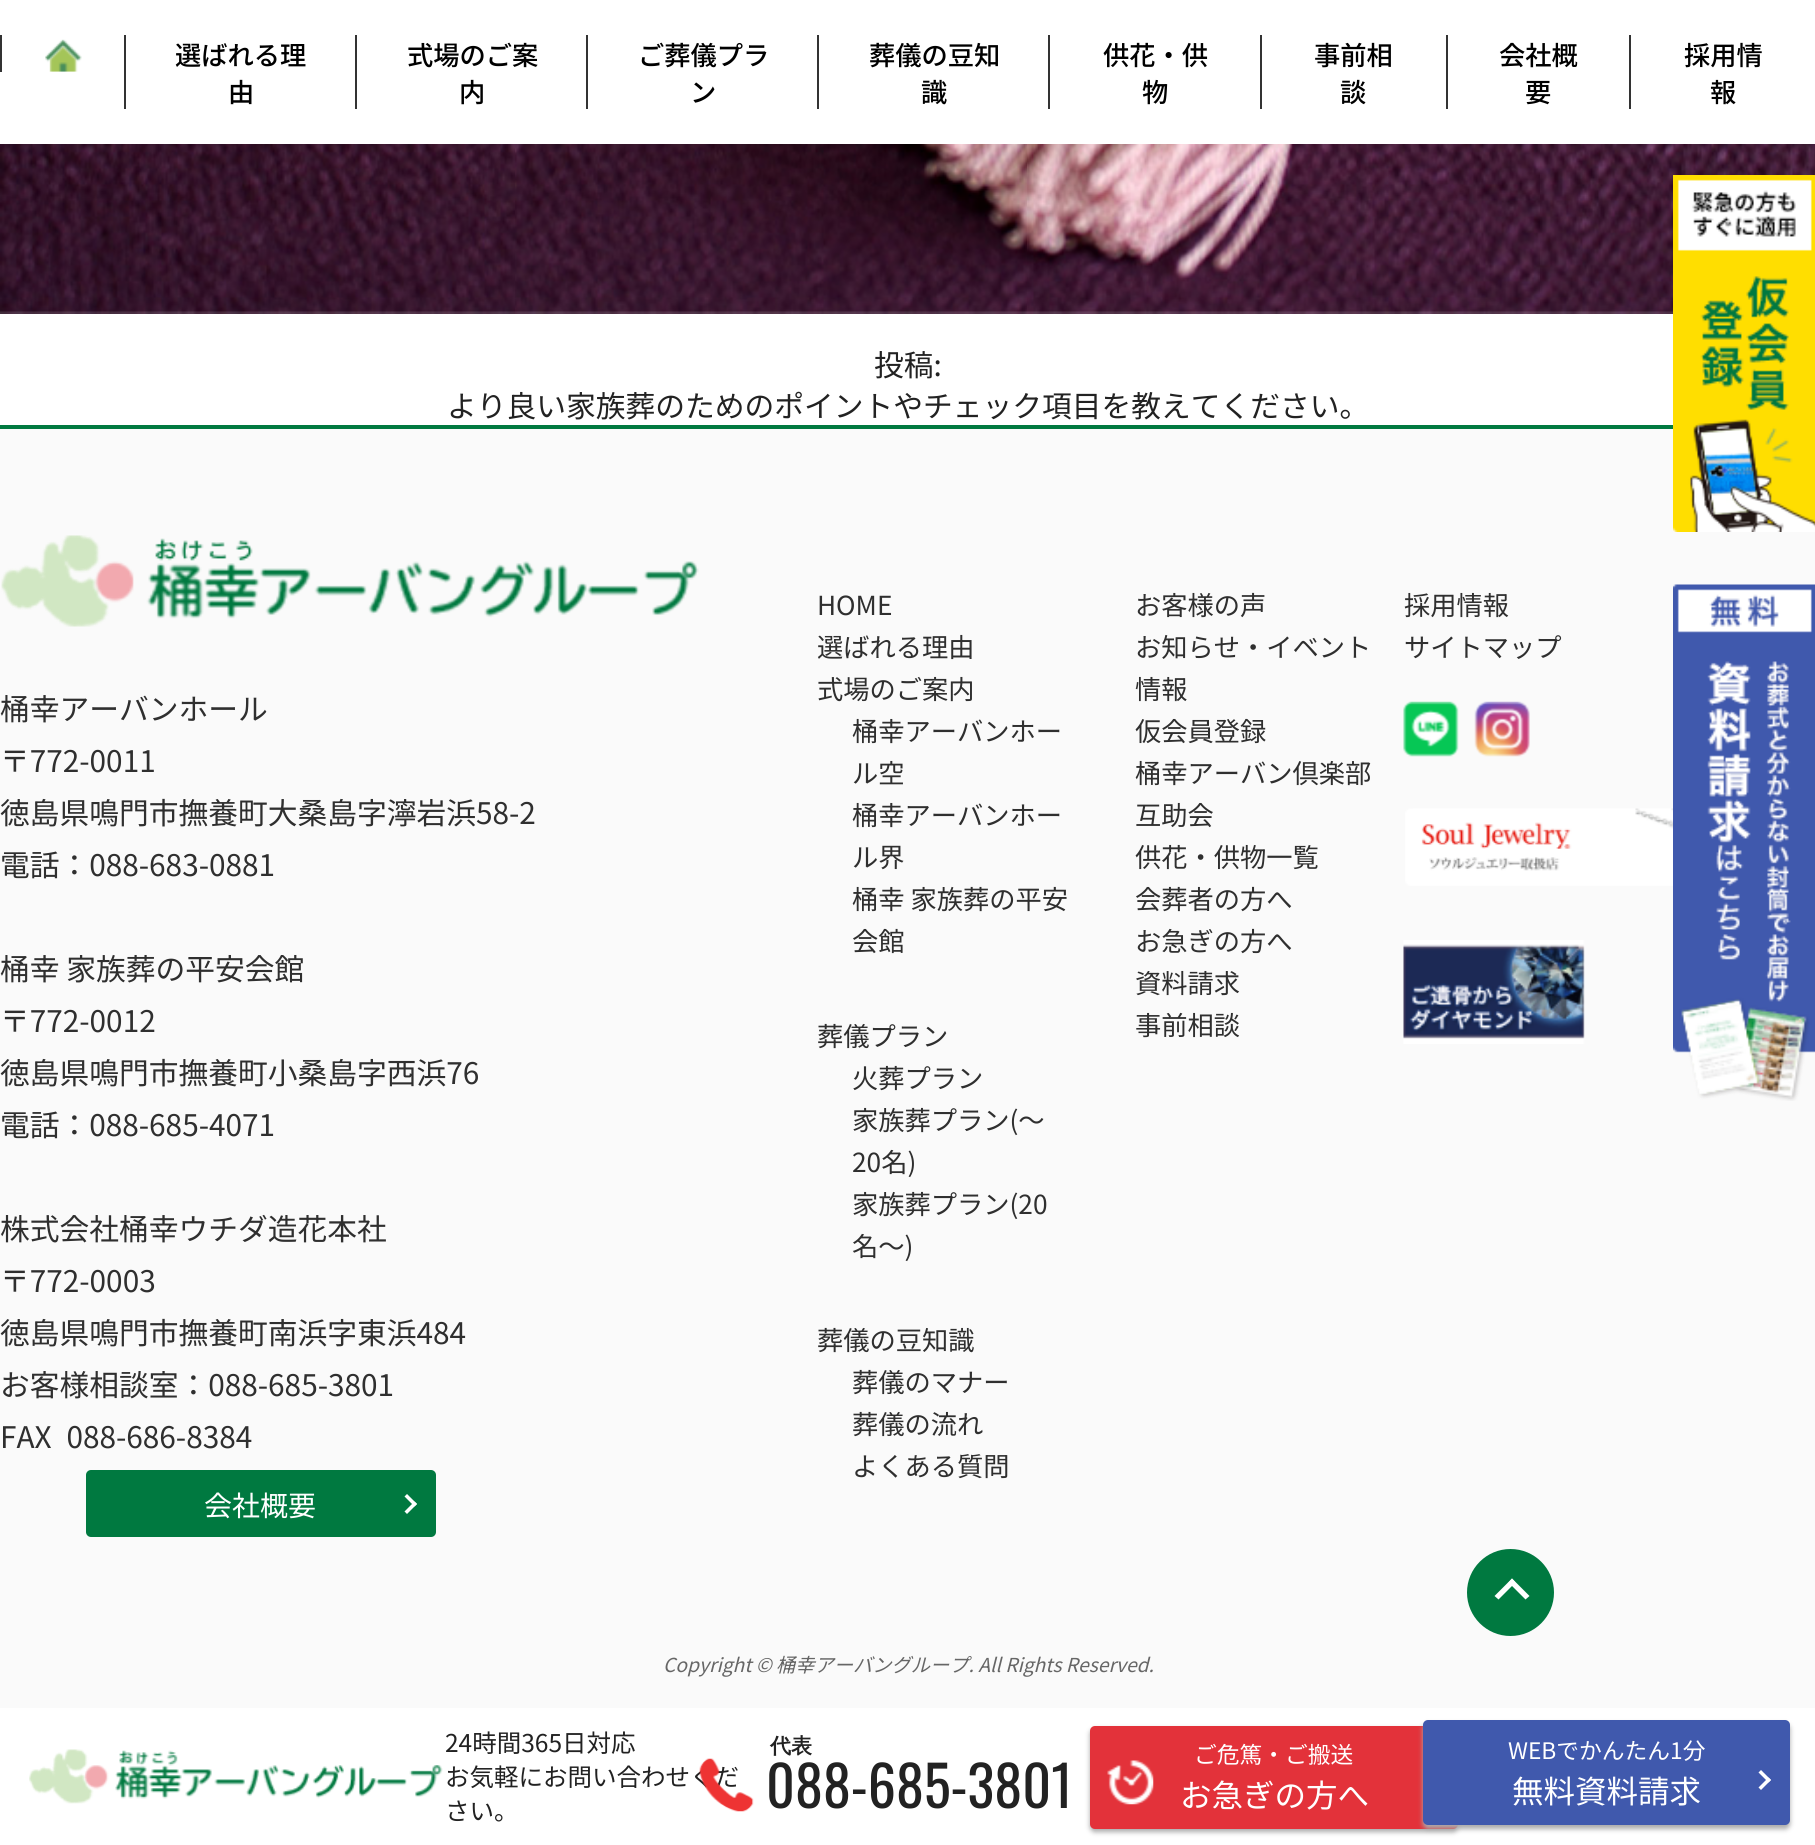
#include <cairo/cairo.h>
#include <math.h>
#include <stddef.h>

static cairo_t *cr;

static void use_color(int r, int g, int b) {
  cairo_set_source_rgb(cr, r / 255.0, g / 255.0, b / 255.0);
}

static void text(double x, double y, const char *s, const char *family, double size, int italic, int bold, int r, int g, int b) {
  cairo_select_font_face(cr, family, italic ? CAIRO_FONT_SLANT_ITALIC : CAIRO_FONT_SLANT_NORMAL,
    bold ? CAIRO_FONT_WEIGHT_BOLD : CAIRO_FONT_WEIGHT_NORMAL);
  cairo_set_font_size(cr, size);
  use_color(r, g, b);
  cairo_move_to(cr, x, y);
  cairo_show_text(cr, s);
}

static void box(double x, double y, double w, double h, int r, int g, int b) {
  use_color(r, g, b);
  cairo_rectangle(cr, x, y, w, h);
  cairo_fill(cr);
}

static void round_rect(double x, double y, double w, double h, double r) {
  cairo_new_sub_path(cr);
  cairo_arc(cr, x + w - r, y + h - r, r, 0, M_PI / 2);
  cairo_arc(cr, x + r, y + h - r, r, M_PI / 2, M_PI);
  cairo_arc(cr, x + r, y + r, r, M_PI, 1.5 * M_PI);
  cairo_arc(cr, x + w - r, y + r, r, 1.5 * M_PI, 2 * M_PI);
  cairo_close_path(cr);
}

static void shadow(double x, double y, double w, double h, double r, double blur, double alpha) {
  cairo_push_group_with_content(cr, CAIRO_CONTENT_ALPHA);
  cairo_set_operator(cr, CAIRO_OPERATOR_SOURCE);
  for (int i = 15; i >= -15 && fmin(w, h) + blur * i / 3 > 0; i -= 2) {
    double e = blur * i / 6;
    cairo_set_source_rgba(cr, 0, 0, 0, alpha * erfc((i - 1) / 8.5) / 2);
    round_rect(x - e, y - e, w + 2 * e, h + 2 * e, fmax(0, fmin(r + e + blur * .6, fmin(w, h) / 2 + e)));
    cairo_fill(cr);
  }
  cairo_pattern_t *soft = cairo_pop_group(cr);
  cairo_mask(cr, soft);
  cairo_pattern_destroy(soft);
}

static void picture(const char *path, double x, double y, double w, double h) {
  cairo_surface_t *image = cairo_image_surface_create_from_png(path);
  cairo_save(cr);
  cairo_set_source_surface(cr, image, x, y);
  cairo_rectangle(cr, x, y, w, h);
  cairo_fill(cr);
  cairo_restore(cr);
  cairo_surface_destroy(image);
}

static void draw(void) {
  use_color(255, 255, 255);
  cairo_paint(cr);
  box(0, 35, 2, 37, 51, 51, 51);
  picture("img_01.png", 45, 39, 37, 33);
  box(124, 35, 2, 74, 51, 51, 51);
  box(355, 35, 2, 74, 51, 51, 51);
  box(586, 35, 2, 74, 51, 51, 51);
  box(817, 35, 2, 74, 51, 51, 51);
  box(1048, 35, 2, 74, 51, 51, 51);
  box(1260, 35, 2, 74, 51, 51, 51);
  box(1446, 35, 2, 74, 51, 51, 51);
  box(1629, 35, 2, 74, 51, 51, 51);
  picture("img_02.png", 0, 144, 1815, 170);
  box(0, 429, 1815, 1279, 250, 250, 250);
  picture("img_03.png", 1673, 175, 142, 357);
  picture("img_04.png", 1673, 584, 142, 517);
  box(0, 425, 1673, 4, 0, 121, 64);
  picture("img_05.png", 1, 535, 698, 92);
  round_rect(86, 1470, 350, 67, 5);
  cairo_fill(cr);
  use_color(255, 255, 255);
  cairo_new_path(cr);
  cairo_move_to(cr, 407, 1494);
  cairo_line_to(cr, 417, 1504);
  cairo_line_to(cr, 414.5, 1506.5);
  cairo_line_to(cr, 404.5, 1496.5);
  cairo_close_path(cr);
  cairo_fill(cr);
  cairo_new_path(cr);
  cairo_move_to(cr, 414.5, 1501.5);
  cairo_line_to(cr, 417, 1504);
  cairo_line_to(cr, 407, 1514);
  cairo_line_to(cr, 404.5, 1511.5);
  cairo_close_path(cr);
  cairo_fill(cr);
  picture("img_06.png", 1403, 701, 56, 56);
  picture("img_07.png", 1474, 701, 56, 56);
  picture("img_08.png", 1405, 808, 268, 78);
  picture("img_09.png", 1403, 940, 182, 104);
  use_color(0, 121, 64);
  cairo_arc(cr, 1510.5, 1592.5, 43.5, 0, 2 * M_PI);
  cairo_fill(cr);
  use_color(255, 255, 255);
  cairo_new_path(cr);
  cairo_move_to(cr, 1494.5, 1596);
  cairo_line_to(cr, 1512, 1578.5);
  cairo_line_to(cr, 1515.5, 1582.5);
  cairo_line_to(cr, 1498.5, 1599.5);
  cairo_close_path(cr);
  cairo_fill(cr);
  cairo_new_path(cr);
  cairo_move_to(cr, 1508.5, 1582.5);
  cairo_line_to(cr, 1512, 1578.5);
  cairo_line_to(cr, 1529.5, 1596);
  cairo_line_to(cr, 1525.5, 1599.5);
  cairo_close_path(cr);
  cairo_fill(cr);
  picture("img_10.png", 29, 1749, 414, 55);
  use_color(170, 170, 170);
  shadow(1090, 1729, 368, 103, 5, 2.5, 1);
  use_color(227, 50, 58);
  round_rect(1090, 1726, 368, 103, 5);
  cairo_fill(cr);
  picture("img_12.png", 1107, 1760, 47, 45);
  use_color(170, 170, 170);
  shadow(1423, 1724, 367, 105, 5, 2.5, 1);
  use_color(64, 89, 173);
  round_rect(1423, 1720, 367, 105, 5);
  cairo_fill(cr);
  use_color(255, 255, 255);
  cairo_new_path(cr);
  cairo_move_to(cr, 1761, 1770);
  cairo_line_to(cr, 1771, 1780);
  cairo_line_to(cr, 1768.5, 1782.5);
  cairo_line_to(cr, 1758.5, 1772.5);
  cairo_close_path(cr);
  cairo_fill(cr);
  cairo_new_path(cr);
  cairo_move_to(cr, 1768.5, 1777.5);
  cairo_line_to(cr, 1771, 1780);
  cairo_line_to(cr, 1761, 1790);
  cairo_line_to(cr, 1758.5, 1787.5);
  cairo_close_path(cr);
  cairo_fill(cr);
  text(175, 65, "選ばれる理", "Noto Sans JP Medium", 26.25, 0, 0, 0, 0, 0);
  text(228, 102, "由", "Noto Sans JP Medium", 26.25, 0, 0, 0, 0, 0);
  text(407, 65, "式場のご案", "Noto Sans JP Medium", 26.25, 0, 0, 0, 0, 0);
  text(459, 102, "内", "Noto Sans JP Medium", 26.25, 0, 0, 0, 0, 0);
  text(638, 65, "ご葬儀プラ", "Noto Sans JP Medium", 26.25, 0, 0, 0, 0, 0);
  text(690, 102, "ン", "Noto Sans JP Medium", 26.25, 0, 0, 0, 0, 0);
  text(869, 65, "葬儀の豆知", "Noto Sans JP Medium", 26.25, 0, 0, 0, 0, 0);
  text(921, 102, "識", "Noto Sans JP Medium", 26.25, 0, 0, 0, 0, 0);
  text(1103, 65, "供花・供", "Noto Sans JP Medium", 26.25, 0, 0, 0, 0, 0);
  text(1142, 102, "物", "Noto Sans JP Medium", 26.25, 0, 0, 0, 0, 0);
  text(1314, 65, "事前相", "Noto Sans JP Medium", 26.25, 0, 0, 0, 0, 0);
  text(1340, 102, "談", "Noto Sans JP Medium", 26.25, 0, 0, 0, 0, 0);
  text(1499, 65, "会社概", "Noto Sans JP Medium", 26.25, 0, 0, 0, 0, 0);
  text(1525, 102, "要", "Noto Sans JP Medium", 26.25, 0, 0, 0, 0, 0);
  text(1684, 65, "採用情", "Noto Sans JP Medium", 26.25, 0, 0, 0, 0, 0);
  text(1710, 102, "報", "Noto Sans JP Medium", 26.25, 0, 0, 0, 0, 0);
  text(874, 376, "投稿:", "Noto Sans JP", 29.75, 0, 0, 34, 34, 34);
  text(447, 417, "より良い家族葬のためのポイントやチェック項目を教えてください。", "Noto Sans JP", 29.75, 0, 0, 34, 34, 34);
  text(0, 720, "桶幸アーバンホール", "Noto Sans JP", 29.75, 0, 0, 47, 47, 47);
  text(0, 772, "〒772-0011", "Noto Sans JP", 29.75, 0, 0, 47, 47, 47);
  text(0, 824, "徳島県鳴門市撫養町大桑島字濘岩浜58-2", "Noto Sans JP", 29.75, 0, 0, 47, 47, 47);
  text(0, 876, "電話：088-683-0881", "Noto Sans JP", 29.75, 0, 0, 47, 47, 47);
  text(0, 980, "桶幸 家族葬の平安会館", "Noto Sans JP", 29.75, 0, 0, 47, 47, 47);
  text(0, 1032, "〒772-0012", "Noto Sans JP", 29.75, 0, 0, 47, 47, 47);
  text(0, 1084, "徳島県鳴門市撫養町小桑島字西浜76", "Noto Sans JP", 29.75, 0, 0, 47, 47, 47);
  text(0, 1136, "電話：088-685-4071", "Noto Sans JP", 29.75, 0, 0, 47, 47, 47);
  text(0, 1240, "株式会社桶幸ウチダ造花本社", "Noto Sans JP", 29.75, 0, 0, 47, 47, 47);
  text(0, 1292, "〒772-0003", "Noto Sans JP", 29.75, 0, 0, 47, 47, 47);
  text(0, 1344, "徳島県鳴門市撫養町南浜字東浜484", "Noto Sans JP", 29.75, 0, 0, 47, 47, 47);
  text(0, 1396, "お客様相談室：088-685-3801", "Noto Sans JP", 29.75, 0, 0, 47, 47, 47);
  text(0, 1448, "FAX 088-686-8384", "Noto Sans JP", 29.75, 0, 0, 47, 47, 47);
  text(204, 1516, "会社概要", "Noto Sans JP", 28, 0, 0, 255, 255, 255);
  text(817, 615, "HOME", "Noto Sans JP", 26.25, 0, 0, 47, 47, 47);
  text(817, 657, "選ばれる理由", "Noto Sans JP", 26.25, 0, 0, 47, 47, 47);
  text(817, 699, "式場のご案内", "Noto Sans JP", 26.25, 0, 0, 47, 47, 47);
  text(852, 741, "桶幸アーバンホー", "Noto Sans JP", 26.25, 0, 0, 47, 47, 47);
  text(852, 783, "ル空", "Noto Sans JP", 26.25, 0, 0, 47, 47, 47);
  text(852, 825, "桶幸アーバンホー", "Noto Sans JP", 26.25, 0, 0, 47, 47, 47);
  text(852, 867, "ル界", "Noto Sans JP", 26.25, 0, 0, 47, 47, 47);
  text(852, 909, "桶幸 家族葬の平安", "Noto Sans JP", 26.25, 0, 0, 47, 47, 47);
  text(852, 951, "会館", "Noto Sans JP", 26.25, 0, 0, 47, 47, 47);
  text(817, 1046, "葬儀プラン", "Noto Sans JP", 26.25, 0, 0, 47, 47, 47);
  text(852, 1088, "火葬プラン", "Noto Sans JP", 26.25, 0, 0, 47, 47, 47);
  text(852, 1130, "家族葬プラン(～", "Noto Sans JP", 26.25, 0, 0, 47, 47, 47);
  text(852, 1172, "20名)", "Noto Sans JP", 26.25, 0, 0, 47, 47, 47);
  text(852, 1214, "家族葬プラン(20", "Noto Sans JP", 26.25, 0, 0, 47, 47, 47);
  text(852, 1256, "名～)", "Noto Sans JP", 26.25, 0, 0, 47, 47, 47);
  text(817, 1350, "葬儀の豆知識", "Noto Sans JP", 26.25, 0, 0, 47, 47, 47);
  text(852, 1392, "葬儀のマナー", "Noto Sans JP", 26.25, 0, 0, 47, 47, 47);
  text(852, 1434, "葬儀の流れ", "Noto Sans JP", 26.25, 0, 0, 47, 47, 47);
  text(852, 1476, "よくある質問", "Noto Sans JP", 26.25, 0, 0, 47, 47, 47);
  text(1135, 615, "お客様の声", "Noto Sans JP", 26.25, 0, 0, 47, 47, 47);
  text(1135, 657, "お知らせ・イベント", "Noto Sans JP", 26.25, 0, 0, 47, 47, 47);
  text(1135, 699, "情報", "Noto Sans JP", 26.25, 0, 0, 47, 47, 47);
  text(1135, 741, "仮会員登録", "Noto Sans JP", 26.25, 0, 0, 47, 47, 47);
  text(1135, 783, "桶幸アーバン倶楽部", "Noto Sans JP", 26.25, 0, 0, 47, 47, 47);
  text(1135, 825, "互助会", "Noto Sans JP", 26.25, 0, 0, 47, 47, 47);
  text(1135, 867, "供花・供物一覧", "Noto Sans JP", 26.25, 0, 0, 47, 47, 47);
  text(1135, 909, "会葬者の方へ", "Noto Sans JP", 26.25, 0, 0, 47, 47, 47);
  text(1135, 951, "お急ぎの方へ", "Noto Sans JP", 26.25, 0, 0, 47, 47, 47);
  text(1135, 993, "資料請求", "Noto Sans JP", 26.25, 0, 0, 47, 47, 47);
  text(1135, 1035, "事前相談", "Noto Sans JP", 26.25, 0, 0, 47, 47, 47);
  text(1404, 615, "採用情報", "Noto Sans JP", 26.25, 0, 0, 47, 47, 47);
  text(1404, 657, "サイトマップ", "Noto Sans JP", 26.25, 0, 0, 47, 47, 47);
  text(663, 1672, "Copyright © 桶幸アーバングループ. All Rights Reserved.", "Noto Sans JP", 19.25, 1, 0, 102, 102, 102);
  text(445, 1752, "24時間365日対応", "Noto Sans JP", 24.5, 0, 0, 34, 34, 34);
  text(445, 1786, "お気軽にお問い合わせくだ", "Noto Sans JP", 24.5, 0, 0, 34, 34, 34);
  text(445, 1820, "さい。", "Noto Sans JP", 24.5, 0, 0, 34, 34, 34);
  text(770, 1753, "代表", "WenQuanYi Zen Hei", 21, 0, 1, 34, 34, 34);
  picture("img_11.png", 699, 1758, 55, 54);
  text(766, 1808, "088-685-3801", "Oswald", 56, 0, 0, 34, 34, 34);
  text(1194, 1763, "ご危篤・ご搬送", "Noto Sans JP", 22.75, 0, 0, 255, 255, 255);
  text(1180, 1807, "お急ぎの方へ", "Noto Sans JP", 31.5, 0, 0, 255, 255, 255);
  text(1508, 1759, "WEBでかんたん1分", "Noto Sans JP", 22.75, 0, 0, 255, 255, 255);
  text(1512, 1803, "無料資料請求", "Noto Sans JP", 31.5, 0, 0, 255, 255, 255);
}

int main(void) {
  cairo_surface_t *surface = cairo_image_surface_create(CAIRO_FORMAT_RGB24, 1815, 1845);
  cr = cairo_create(surface);
  cairo_font_options_t *options = cairo_font_options_create();
  cairo_font_options_set_hint_metrics(options, CAIRO_HINT_METRICS_OFF);
  cairo_font_options_set_hint_style(options, CAIRO_HINT_STYLE_NONE);
  cairo_set_font_options(cr, options);
  cairo_set_miter_limit(cr, 4);
  draw();
  cairo_surface_write_to_png(surface, "out.png");
  cairo_font_options_destroy(options);
  cairo_destroy(cr);
  cairo_surface_destroy(surface);
  return 0;
}
